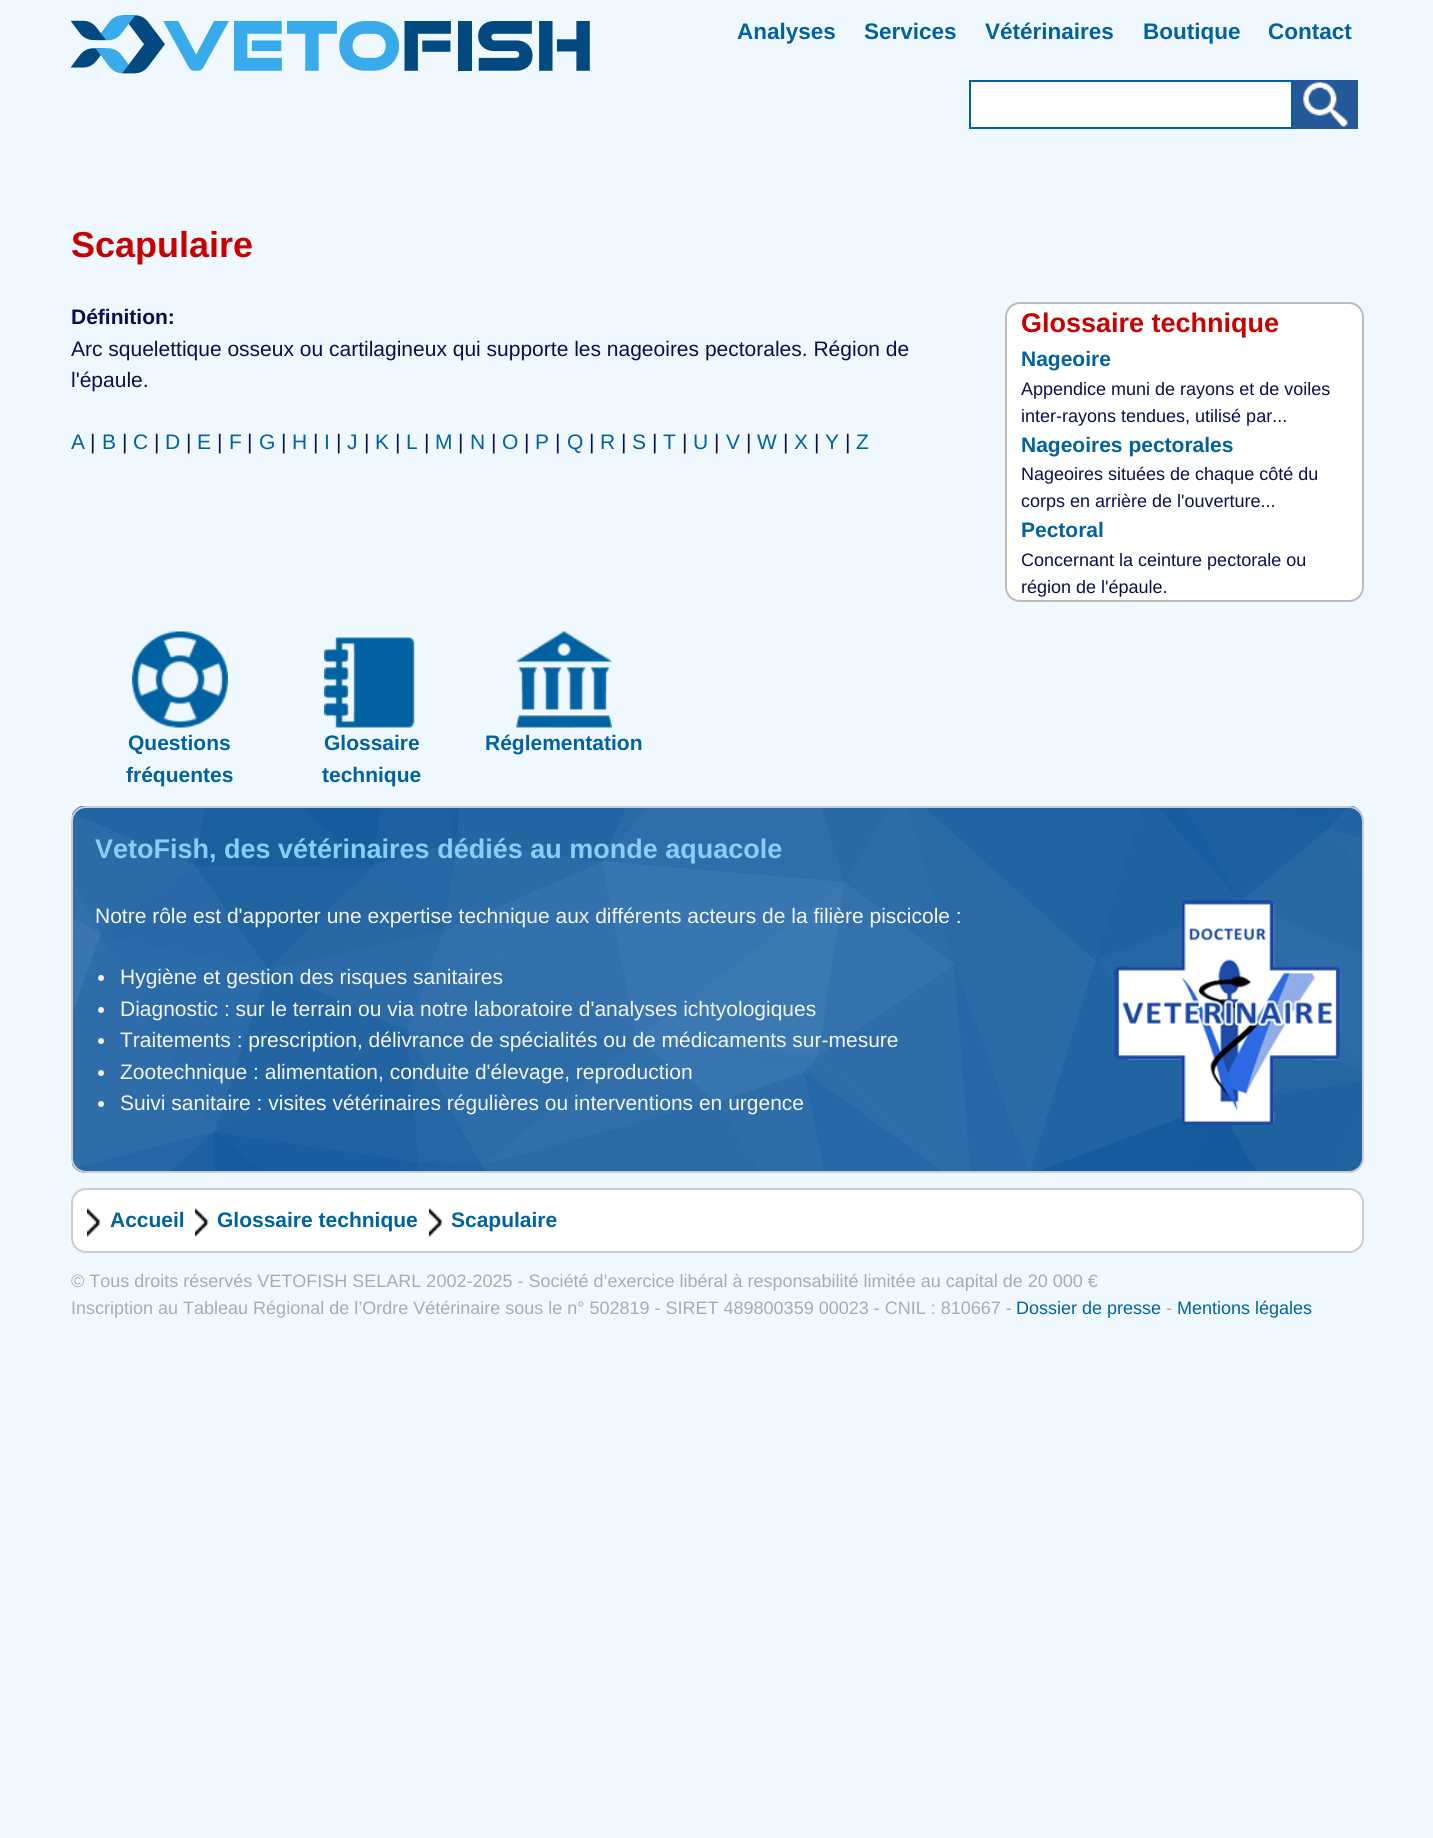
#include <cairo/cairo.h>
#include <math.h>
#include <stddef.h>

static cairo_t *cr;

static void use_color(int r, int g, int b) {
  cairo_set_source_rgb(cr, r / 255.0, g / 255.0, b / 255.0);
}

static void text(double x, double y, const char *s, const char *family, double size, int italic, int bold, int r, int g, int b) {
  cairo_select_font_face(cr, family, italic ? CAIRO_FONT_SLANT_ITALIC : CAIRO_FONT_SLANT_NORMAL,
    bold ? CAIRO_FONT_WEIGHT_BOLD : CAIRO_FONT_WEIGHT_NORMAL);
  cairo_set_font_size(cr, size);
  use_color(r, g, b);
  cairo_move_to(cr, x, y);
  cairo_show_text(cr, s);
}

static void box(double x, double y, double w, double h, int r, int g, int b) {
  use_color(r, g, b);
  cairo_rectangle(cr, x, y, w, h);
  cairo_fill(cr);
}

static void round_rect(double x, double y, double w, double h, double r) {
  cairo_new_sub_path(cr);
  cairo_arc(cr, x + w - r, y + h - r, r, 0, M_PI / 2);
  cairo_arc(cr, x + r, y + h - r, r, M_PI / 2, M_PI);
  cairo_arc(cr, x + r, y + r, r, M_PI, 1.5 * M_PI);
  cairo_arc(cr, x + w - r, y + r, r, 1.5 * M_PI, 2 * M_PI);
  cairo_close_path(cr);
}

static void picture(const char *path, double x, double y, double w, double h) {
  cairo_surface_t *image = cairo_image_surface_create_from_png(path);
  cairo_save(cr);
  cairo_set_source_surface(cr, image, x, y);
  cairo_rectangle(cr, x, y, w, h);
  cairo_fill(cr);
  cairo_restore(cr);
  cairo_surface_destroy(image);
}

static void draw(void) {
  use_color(240, 248, 255);
  cairo_paint(cr);
  picture("img_01.png", 71, 15, 519, 59);
  use_color(255, 255, 255);
  cairo_rectangle(cr, 970, 81, 322, 47);
  cairo_fill_preserve(cr);
  use_color(0, 98, 160);
  cairo_stroke(cr);
  box(1293, 80, 65, 49, 36, 89, 153);
  picture("img_02.png", 1303, 82, 45, 45);
  use_color(255, 255, 255);
  round_rect(1006, 303, 357, 298, 14);
  cairo_fill_preserve(cr);
  use_color(187, 187, 187);
  cairo_stroke(cr);
  picture("img_03.png", 132, 631, 96, 97);
  picture("img_04.png", 324, 637, 91, 91);
  picture("img_05.png", 516, 631, 96, 97);
  picture("img_06.png", 72, 806, 1290, 367);
  round_rect(72, 807, 1291, 365, 14);
  use_color(204, 204, 204);
  cairo_stroke(cr);
  picture("img_07.png", 1114, 900, 226, 225);
  use_color(245, 245, 245);
  cairo_arc(cr, 101, 978, 3, 0, 2 * M_PI);
  cairo_fill(cr);
  cairo_arc(cr, 101, 1010, 3, 0, 2 * M_PI);
  cairo_fill(cr);
  cairo_arc(cr, 101, 1041, 3, 0, 2 * M_PI);
  cairo_fill(cr);
  cairo_arc(cr, 101, 1073, 3, 0, 2 * M_PI);
  cairo_fill(cr);
  cairo_arc(cr, 101, 1104, 3, 0, 2 * M_PI);
  cairo_fill(cr);
  use_color(255, 255, 255);
  round_rect(72, 1189, 1291, 63, 14);
  cairo_fill_preserve(cr);
  use_color(204, 204, 204);
  cairo_stroke(cr);
  picture("img_08.png", 87, 1207, 14, 31);
  picture("img_08.png", 195, 1207, 14, 31);
  picture("img_09.png", 429, 1207, 14, 31);
  text(737, 39, "Analyses", "Liberation Sans", 22.5, 0, 1, 0, 98, 160);
  text(864, 39, "Services", "Liberation Sans", 22.5, 0, 1, 0, 98, 160);
  text(985, 39, "Vétérinaires", "Liberation Sans", 22.5, 0, 1, 0, 98, 160);
  text(1143, 39, "Boutique", "Liberation Sans", 22.5, 0, 1, 0, 98, 160);
  text(1268, 39, "Contact", "Liberation Sans", 22.5, 0, 1, 0, 98, 160);
  text(71, 257, "Scapulaire", "Liberation Sans", 36, 0, 1, 200, 0, 0);
  text(71, 324, "Définition:", "Liberation Sans", 21, 0, 1, 7, 16, 79);
  text(71, 356, "Arc squelettique osseux ou cartilagineux qui supporte les nageoires pectorales. Région de", "Liberation Sans", 21, 0, 0, 7, 16, 79);
  text(71, 387, "l'épaule.", "Liberation Sans", 21, 0, 0, 7, 16, 79);
  text(71, 449, "A", "Liberation Sans", 21, 0, 0, 0, 98, 160);
  text(90, 449, "|", "Liberation Sans", 21, 0, 0, 7, 16, 79);
  text(102, 449, "B", "Liberation Sans", 21, 0, 0, 0, 98, 160);
  text(122, 449, "|", "Liberation Sans", 21, 0, 0, 7, 16, 79);
  text(133, 449, "C", "Liberation Sans", 21, 0, 0, 0, 98, 160);
  text(154, 449, "|", "Liberation Sans", 21, 0, 0, 7, 16, 79);
  text(165, 449, "D", "Liberation Sans", 21, 0, 0, 0, 98, 160);
  text(186, 449, "|", "Liberation Sans", 21, 0, 0, 7, 16, 79);
  text(197, 449, "E", "Liberation Sans", 21, 0, 0, 0, 98, 160);
  text(217, 449, "|", "Liberation Sans", 21, 0, 0, 7, 16, 79);
  text(229, 449, "F", "Liberation Sans", 21, 0, 0, 0, 98, 160);
  text(247, 449, "|", "Liberation Sans", 21, 0, 0, 7, 16, 79);
  text(259, 449, "G", "Liberation Sans", 21, 0, 0, 0, 98, 160);
  text(281, 449, "|", "Liberation Sans", 21, 0, 0, 7, 16, 79);
  text(292, 449, "H", "Liberation Sans", 21, 0, 0, 0, 98, 160);
  text(313, 449, "|", "Liberation Sans", 21, 0, 0, 7, 16, 79);
  text(324, 449, "I", "Liberation Sans", 21, 0, 0, 0, 98, 160);
  text(336, 449, "|", "Liberation Sans", 21, 0, 0, 7, 16, 79);
  text(347, 449, "J", "Liberation Sans", 21, 0, 0, 0, 98, 160);
  text(364, 449, "|", "Liberation Sans", 21, 0, 0, 7, 16, 79);
  text(375, 449, "K", "Liberation Sans", 21, 0, 0, 0, 98, 160);
  text(395, 449, "|", "Liberation Sans", 21, 0, 0, 7, 16, 79);
  text(406, 449, "L", "Liberation Sans", 21, 0, 0, 0, 98, 160);
  text(424, 449, "|", "Liberation Sans", 21, 0, 0, 7, 16, 79);
  text(435, 449, "M", "Liberation Sans", 21, 0, 0, 0, 98, 160);
  text(458, 449, "|", "Liberation Sans", 21, 0, 0, 7, 16, 79);
  text(470, 449, "N", "Liberation Sans", 21, 0, 0, 0, 98, 160);
  text(491, 449, "|", "Liberation Sans", 21, 0, 0, 7, 16, 79);
  text(502, 449, "O", "Liberation Sans", 21, 0, 0, 0, 98, 160);
  text(524, 449, "|", "Liberation Sans", 21, 0, 0, 7, 16, 79);
  text(535, 449, "P", "Liberation Sans", 21, 0, 0, 0, 98, 160);
  text(555, 449, "|", "Liberation Sans", 21, 0, 0, 7, 16, 79);
  text(567, 449, "Q", "Liberation Sans", 21, 0, 0, 0, 98, 160);
  text(589, 449, "|", "Liberation Sans", 21, 0, 0, 7, 16, 79);
  text(600, 449, "R", "Liberation Sans", 21, 0, 0, 0, 98, 160);
  text(621, 449, "|", "Liberation Sans", 21, 0, 0, 7, 16, 79);
  text(632, 449, "S", "Liberation Sans", 21, 0, 0, 0, 98, 160);
  text(652, 449, "|", "Liberation Sans", 21, 0, 0, 7, 16, 79);
  text(663, 449, "T", "Liberation Sans", 21, 0, 0, 0, 98, 160);
  text(682, 449, "|", "Liberation Sans", 21, 0, 0, 7, 16, 79);
  text(693, 449, "U", "Liberation Sans", 21, 0, 0, 0, 98, 160);
  text(714, 449, "|", "Liberation Sans", 21, 0, 0, 7, 16, 79);
  text(726, 449, "V", "Liberation Sans", 21, 0, 0, 0, 98, 160);
  text(746, 449, "|", "Liberation Sans", 21, 0, 0, 7, 16, 79);
  text(757, 449, "W", "Liberation Sans", 21, 0, 0, 0, 98, 160);
  text(783, 449, "|", "Liberation Sans", 21, 0, 0, 7, 16, 79);
  text(794, 449, "X", "Liberation Sans", 21, 0, 0, 0, 98, 160);
  text(814, 449, "|", "Liberation Sans", 21, 0, 0, 7, 16, 79);
  text(825, 449, "Y", "Liberation Sans", 21, 0, 0, 0, 98, 160);
  text(845, 449, "|", "Liberation Sans", 21, 0, 0, 7, 16, 79);
  text(856, 449, "Z", "Liberation Sans", 21, 0, 0, 0, 98, 160);
  text(1021, 332, "Glossaire technique", "Liberation Sans", 27, 0, 1, 200, 0, 0);
  text(1021, 366, "Nageoire", "Liberation Sans", 21, 0, 1, 0, 98, 160);
  text(1021, 395, "Appendice muni de rayons et de voiles", "Liberation Sans", 18, 0, 0, 7, 16, 79);
  text(1021, 422, "inter-rayons tendues, utilisé par...", "Liberation Sans", 18, 0, 0, 7, 16, 79);
  text(1021, 452, "Nageoires pectorales", "Liberation Sans", 21, 0, 1, 0, 98, 160);
  text(1021, 480, "Nageoires situées de chaque côté du", "Liberation Sans", 18, 0, 0, 7, 16, 79);
  text(1021, 507, "corps en arrière de l'ouverture...", "Liberation Sans", 18, 0, 0, 7, 16, 79);
  text(1021, 537, "Pectoral", "Liberation Sans", 21, 0, 1, 0, 98, 160);
  text(1021, 566, "Concernant la ceinture pectorale ou", "Liberation Sans", 18, 0, 0, 7, 16, 79);
  text(1021, 593, "région de l'épaule.", "Liberation Sans", 18, 0, 0, 7, 16, 79);
  text(128, 750, "Questions", "Liberation Sans", 21, 0, 1, 0, 98, 160);
  text(126, 782, "fréquentes", "Liberation Sans", 21, 0, 1, 0, 98, 160);
  text(324, 750, "Glossaire", "Liberation Sans", 21, 0, 1, 0, 98, 160);
  text(322, 782, "technique", "Liberation Sans", 21, 0, 1, 0, 98, 160);
  text(485, 750, "Réglementation", "Liberation Sans", 21, 0, 1, 0, 98, 160);
  text(95, 858, "VetoFish, des vétérinaires dédiés au monde aquacole", "Liberation Sans", 27, 0, 1, 135, 206, 250);
  text(95, 923, "Notre rôle est d'apporter une expertise technique aux différents acteurs de la filière piscicole :", "Liberation Sans", 21, 0, 0, 245, 245, 245);
  text(120, 984, "Hygiène et gestion des risques sanitaires", "Liberation Sans", 21, 0, 0, 245, 245, 245);
  text(120, 1016, "Diagnostic : sur le terrain ou via notre laboratoire d'analyses ichtyologiques", "Liberation Sans", 21, 0, 0, 245, 245, 245);
  text(120, 1047, "Traitements : prescription, délivrance de spécialités ou de médicaments sur-mesure", "Liberation Sans", 21, 0, 0, 245, 245, 245);
  text(120, 1079, "Zootechnique : alimentation, conduite d'élevage, reproduction", "Liberation Sans", 21, 0, 0, 245, 245, 245);
  text(120, 1110, "Suivi sanitaire : visites vétérinaires régulières ou interventions en urgence", "Liberation Sans", 21, 0, 0, 245, 245, 245);
  text(110, 1227, "Accueil", "Liberation Sans", 21, 0, 1, 0, 98, 160);
  text(217, 1227, "Glossaire technique", "Liberation Sans", 21, 0, 1, 0, 98, 160);
  text(451, 1227, "Scapulaire", "Liberation Sans", 21, 0, 1, 0, 98, 160);
  text(71, 1287, "© Tous droits réservés VETOFISH SELARL 2002-2025 - Société d’exercice libéral à responsabilité limitée au capital de 20 000 €", "Liberation Sans", 18, 0, 0, 170, 170, 170);
  text(71, 1314, "Inscription au Tableau Régional de l’Ordre Vétérinaire sous le n° 502819 - SIRET 489800359 00023 - CNIL : 810667 -", "Liberation Sans", 18, 0, 0, 170, 170, 170);
  text(1016, 1314, "Dossier de presse", "Liberation Sans", 18, 0, 0, 0, 98, 160);
  text(1166, 1314, "-", "Liberation Sans", 18, 0, 0, 170, 170, 170);
  text(1177, 1314, "Mentions légales", "Liberation Sans", 18, 0, 0, 0, 98, 160);
}

int main(void) {
  cairo_surface_t *surface = cairo_image_surface_create(CAIRO_FORMAT_RGB24, 1433, 1838);
  cr = cairo_create(surface);
  cairo_font_options_t *options = cairo_font_options_create();
  cairo_font_options_set_hint_metrics(options, CAIRO_HINT_METRICS_OFF);
  cairo_font_options_set_hint_style(options, CAIRO_HINT_STYLE_NONE);
  cairo_set_font_options(cr, options);
  cairo_set_miter_limit(cr, 4);
  draw();
  cairo_surface_write_to_png(surface, "out.png");
  cairo_font_options_destroy(options);
  cairo_destroy(cr);
  cairo_surface_destroy(surface);
  return 0;
}
